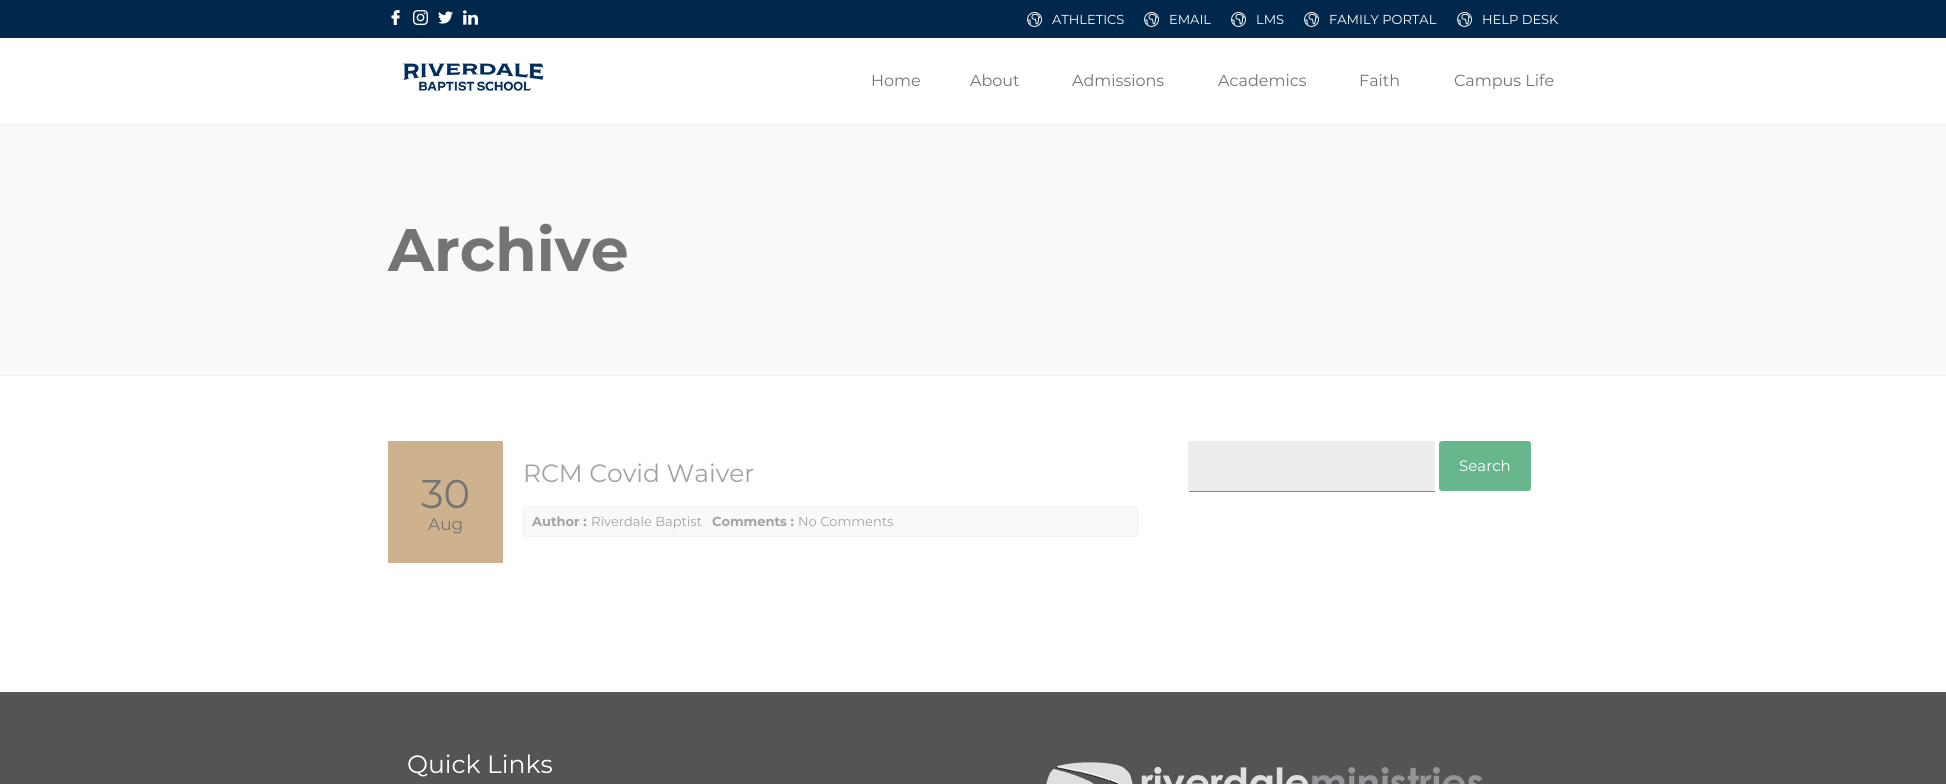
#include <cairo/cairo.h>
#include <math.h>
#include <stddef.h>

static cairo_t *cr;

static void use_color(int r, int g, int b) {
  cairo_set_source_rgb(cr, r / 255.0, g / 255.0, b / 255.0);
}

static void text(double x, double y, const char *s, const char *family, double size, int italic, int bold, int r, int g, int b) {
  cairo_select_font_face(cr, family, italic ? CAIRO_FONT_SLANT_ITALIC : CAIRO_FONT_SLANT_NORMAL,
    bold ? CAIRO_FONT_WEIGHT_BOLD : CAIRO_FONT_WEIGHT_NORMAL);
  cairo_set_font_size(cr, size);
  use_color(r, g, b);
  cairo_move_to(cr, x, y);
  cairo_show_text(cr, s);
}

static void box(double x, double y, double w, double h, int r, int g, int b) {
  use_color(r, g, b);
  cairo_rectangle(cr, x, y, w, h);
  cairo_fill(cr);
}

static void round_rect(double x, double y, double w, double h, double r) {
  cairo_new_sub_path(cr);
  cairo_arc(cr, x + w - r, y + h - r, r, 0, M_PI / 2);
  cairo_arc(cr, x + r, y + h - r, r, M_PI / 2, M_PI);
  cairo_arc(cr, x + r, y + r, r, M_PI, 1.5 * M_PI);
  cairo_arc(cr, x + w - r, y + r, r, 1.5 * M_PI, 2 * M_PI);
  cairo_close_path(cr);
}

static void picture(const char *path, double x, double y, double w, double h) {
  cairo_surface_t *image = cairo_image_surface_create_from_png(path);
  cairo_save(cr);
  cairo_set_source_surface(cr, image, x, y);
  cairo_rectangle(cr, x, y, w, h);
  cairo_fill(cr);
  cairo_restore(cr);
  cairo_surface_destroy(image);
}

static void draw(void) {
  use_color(255, 255, 255);
  cairo_paint(cr);
  box(0, 0, 1946, 38, 0, 39, 76);
  picture("img_01.png", 391, 10, 9, 15);
  picture("img_02.png", 413, 10, 15, 15);
  picture("img_03.png", 438, 11, 15, 13);
  picture("img_04.png", 463, 10, 15, 15);
  picture("img_05.png", 1027, 12, 15, 15);
  picture("img_05.png", 1144, 12, 15, 15);
  picture("img_05.png", 1231, 12, 15, 15);
  picture("img_05.png", 1304, 12, 15, 15);
  picture("img_05.png", 1457, 12, 15, 15);
  box(0, 124, 1946, 1, 241, 241, 241);
  picture("img_06.png", 403, 63, 141, 28);
  box(0, 125, 1946, 250, 249, 249, 249);
  box(0, 375, 1946, 1, 241, 241, 241);
  box(388, 441, 115, 122, 206, 178, 141);
  use_color(249, 249, 249);
  round_rect(523.5, 506.5, 614, 30, 2.5);
  cairo_fill_preserve(cr);
  use_color(241, 241, 241);
  cairo_set_line_width(cr, 1);
  cairo_stroke(cr);
  use_color(237, 237, 237);
  cairo_new_path(cr);
  cairo_move_to(cr, 1189, 441);
  cairo_line_to(cr, 1434, 441);
  cairo_curve_to(cr, 1435, 441, 1435, 441, 1435, 442);
  cairo_line_to(cr, 1435, 491);
  cairo_line_to(cr, 1188, 491);
  cairo_line_to(cr, 1188, 441);
  cairo_close_path(cr);
  cairo_fill(cr);
  box(1189, 491, 246, 1, 135, 135, 135);
  use_color(104, 183, 140);
  round_rect(1439, 441, 92, 50, 3);
  cairo_fill(cr);
  box(0, 692, 1946, 92, 84, 84, 84);
  picture("img_07.png", 1046, 762, 437, 22);
  text(1052, 24, "ATHLETICS", "Montserrat", 13, 0, 0, 255, 255, 255);
  text(1169, 24, "EMAIL", "Montserrat", 13, 0, 0, 255, 255, 255);
  text(1256, 24, "LMS", "Montserrat", 13, 0, 0, 255, 255, 255);
  text(1329, 24, "FAMILY PORTAL", "Montserrat", 13, 0, 0, 255, 255, 255);
  text(1482, 24, "HELP DESK", "Montserrat", 13, 0, 0, 255, 255, 255);
  text(871, 86, "Home", "Montserrat", 16, 0, 0, 114, 116, 117);
  text(970, 86, "About", "Montserrat", 16, 0, 0, 114, 116, 117);
  text(1072, 86, "Admissions", "Montserrat", 16, 0, 0, 114, 116, 117);
  text(1218, 86, "Academics", "Montserrat", 16, 0, 0, 114, 116, 117);
  text(1359, 86, "Faith", "Montserrat", 16, 0, 0, 114, 116, 117);
  text(1454, 86, "Campus Life", "Montserrat", 16, 0, 0, 114, 116, 117);
  text(388, 271, "Archive", "Montserrat", 60, 0, 1, 114, 116, 117);
  text(421, 508, "30", "Montserrat", 40, 0, 0, 114, 116, 117);
  text(428, 530, "Aug", "Montserrat", 17, 0, 0, 114, 116, 117);
  text(523, 482, "RCM Covid Waiver", "Montserrat", 25, 0, 0, 163, 163, 163);
  text(532, 526, "Author :", "Montserrat", 13, 0, 1, 163, 163, 163);
  text(591, 526, "Riverdale Baptist", "Montserrat", 13, 0, 0, 163, 163, 163);
  text(712, 526, "Comments :", "Montserrat", 13, 0, 1, 163, 163, 163);
  text(798, 526, "No Comments", "Montserrat", 13, 0, 0, 163, 163, 163);
  text(1459, 471, "Search", "Montserrat", 15, 0, 0, 255, 255, 255);
  text(407, 773, "Quick Links", "Montserrat", 25, 0, 0, 255, 255, 255);
}

int main(void) {
  cairo_surface_t *surface = cairo_image_surface_create(CAIRO_FORMAT_RGB24, 1946, 784);
  cr = cairo_create(surface);
  cairo_font_options_t *options = cairo_font_options_create();
  cairo_font_options_set_hint_metrics(options, CAIRO_HINT_METRICS_OFF);
  cairo_font_options_set_hint_style(options, CAIRO_HINT_STYLE_NONE);
  cairo_set_font_options(cr, options);
  cairo_set_miter_limit(cr, 4);
  draw();
  cairo_surface_write_to_png(surface, "out.png");
  cairo_font_options_destroy(options);
  cairo_destroy(cr);
  cairo_surface_destroy(surface);
  return 0;
}
